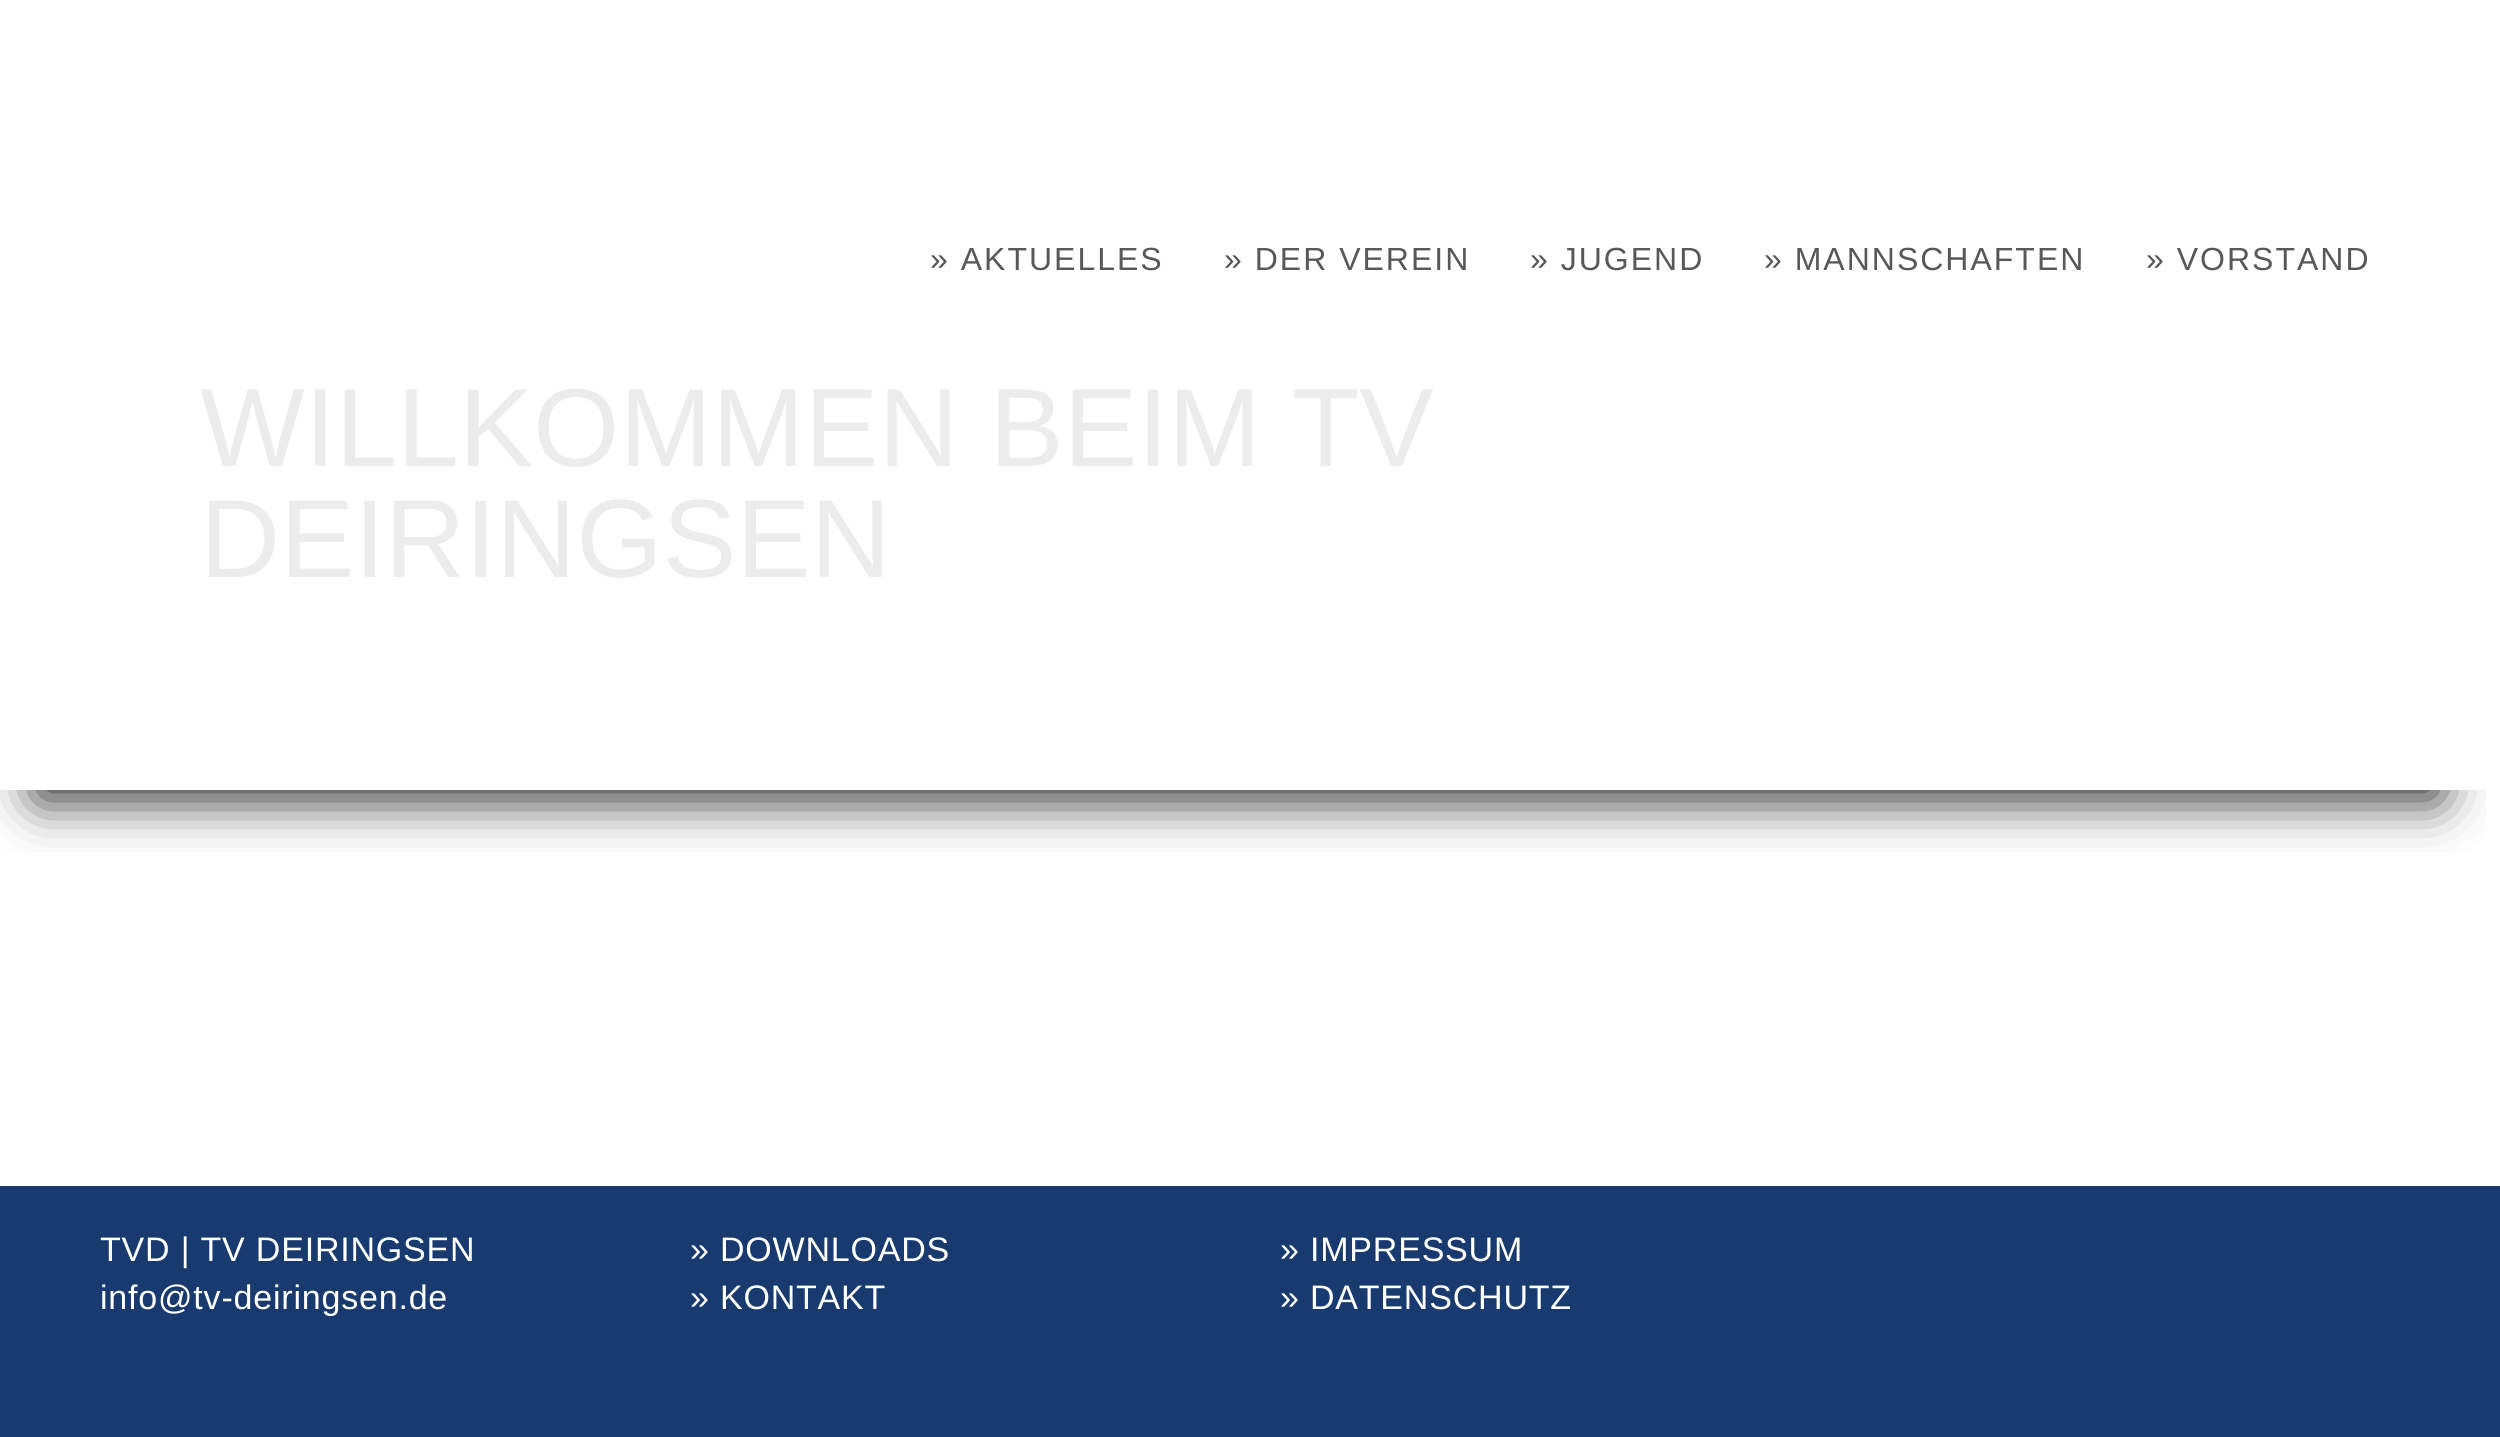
#include <cairo/cairo.h>
#include <math.h>
#include <stddef.h>

static cairo_t *cr;

static void use_color(int r, int g, int b) {
  cairo_set_source_rgb(cr, r / 255.0, g / 255.0, b / 255.0);
}

static void text(double x, double y, const char *s, const char *family, double size, int italic, int bold, int r, int g, int b) {
  cairo_select_font_face(cr, family, italic ? CAIRO_FONT_SLANT_ITALIC : CAIRO_FONT_SLANT_NORMAL,
    bold ? CAIRO_FONT_WEIGHT_BOLD : CAIRO_FONT_WEIGHT_NORMAL);
  cairo_set_font_size(cr, size);
  use_color(r, g, b);
  cairo_move_to(cr, x, y);
  cairo_show_text(cr, s);
}

static void spaced_text(double x, double y, const char *s, double letter, double word) {
  cairo_move_to(cr, x, y);
  while (*s) {
    char ch[5] = {0};
    int n = 0;
    do ch[n++] = *s++; while ((*s & 0xC0) == 0x80);
    cairo_show_text(cr, ch);
    cairo_rel_move_to(cr, letter + word * (*ch == ' '), 0);
  }
}

static void box(double x, double y, double w, double h, int r, int g, int b) {
  use_color(r, g, b);
  cairo_rectangle(cr, x, y, w, h);
  cairo_fill(cr);
}

static void round_rect(double x, double y, double w, double h, double r) {
  cairo_new_sub_path(cr);
  cairo_arc(cr, x + w - r, y + h - r, r, 0, M_PI / 2);
  cairo_arc(cr, x + r, y + h - r, r, M_PI / 2, M_PI);
  cairo_arc(cr, x + r, y + r, r, M_PI, 1.5 * M_PI);
  cairo_arc(cr, x + w - r, y + r, r, 1.5 * M_PI, 2 * M_PI);
  cairo_close_path(cr);
}

static void shadow(double x, double y, double w, double h, double r, double blur, double alpha) {
  cairo_push_group_with_content(cr, CAIRO_CONTENT_ALPHA);
  cairo_set_operator(cr, CAIRO_OPERATOR_SOURCE);
  for (int i = 15; i >= -15 && fmin(w, h) + blur * i / 3 > 0; i -= 2) {
    double e = blur * i / 6;
    cairo_set_source_rgba(cr, 0, 0, 0, alpha * erfc((i - 1) / 8.5) / 2);
    round_rect(x - e, y - e, w + 2 * e, h + 2 * e, fmax(0, fmin(r + e + blur * .6, fmin(w, h) / 2 + e)));
    cairo_fill(cr);
  }
  cairo_pattern_t *soft = cairo_pop_group(cr);
  cairo_mask(cr, soft);
  cairo_pattern_destroy(soft);
}

static void draw(void) {
  use_color(255, 255, 255);
  cairo_paint(cr);
  cairo_save(cr);
  cairo_rectangle(cr, 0, 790, 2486, 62);
  cairo_clip(cr);
  use_color(0, 0, 0);
  shadow(38, 108, 2400, 690, 0, 27, 0.89);
  cairo_restore(cr);
  box(0, 1186, 2500, 251, 25, 58, 110);
  cairo_select_font_face(cr, "Liberation Sans", CAIRO_FONT_SLANT_NORMAL, CAIRO_FONT_WEIGHT_NORMAL);
  cairo_set_font_size(cr, 32);
  use_color(88, 88, 88);
  spaced_text(930, 270, "» AKTUELLES", 2, 0);
  spaced_text(1224, 270, "» DER VEREIN", 2, 0);
  spaced_text(1530, 270, "» JUGEND", 2, 0);
  spaced_text(1764, 270, "» MANNSCHAFTEN", 2, 0);
  spaced_text(2146, 270, "» VORSTAND", 2, 0);
  text(200, 466, "WILLKOMMEN BEIM TV", "Liberation Sans", 111, 0, 0, 236, 236, 236);
  text(200, 577, "DEIRINGSEN", "Liberation Sans", 111, 0, 0, 236, 236, 236);
  cairo_set_font_size(cr, 34);
  use_color(255, 255, 255);
  spaced_text(100, 1261, "TVD | TV DEIRINGSEN", 0.8, 0);
  spaced_text(100, 1309, "info@tv-deiringsen.de", 0.8, 0);
  spaced_text(690, 1261, "» DOWNLOADS", 0.8, 0);
  spaced_text(690, 1309, "» KONTAKT", 0.8, 0);
  spaced_text(1280, 1261, "» IMPRESSUM", 0.8, 0);
  spaced_text(1280, 1309, "» DATENSCHUTZ", 0.8, 0);
}

int main(void) {
  cairo_surface_t *surface = cairo_image_surface_create(CAIRO_FORMAT_RGB24, 2500, 1437);
  cr = cairo_create(surface);
  cairo_font_options_t *options = cairo_font_options_create();
  cairo_font_options_set_hint_metrics(options, CAIRO_HINT_METRICS_OFF);
  cairo_font_options_set_hint_style(options, CAIRO_HINT_STYLE_NONE);
  cairo_set_font_options(cr, options);
  cairo_set_miter_limit(cr, 4);
  draw();
  cairo_surface_write_to_png(surface, "out.png");
  cairo_font_options_destroy(options);
  cairo_destroy(cr);
  cairo_surface_destroy(surface);
  return 0;
}
